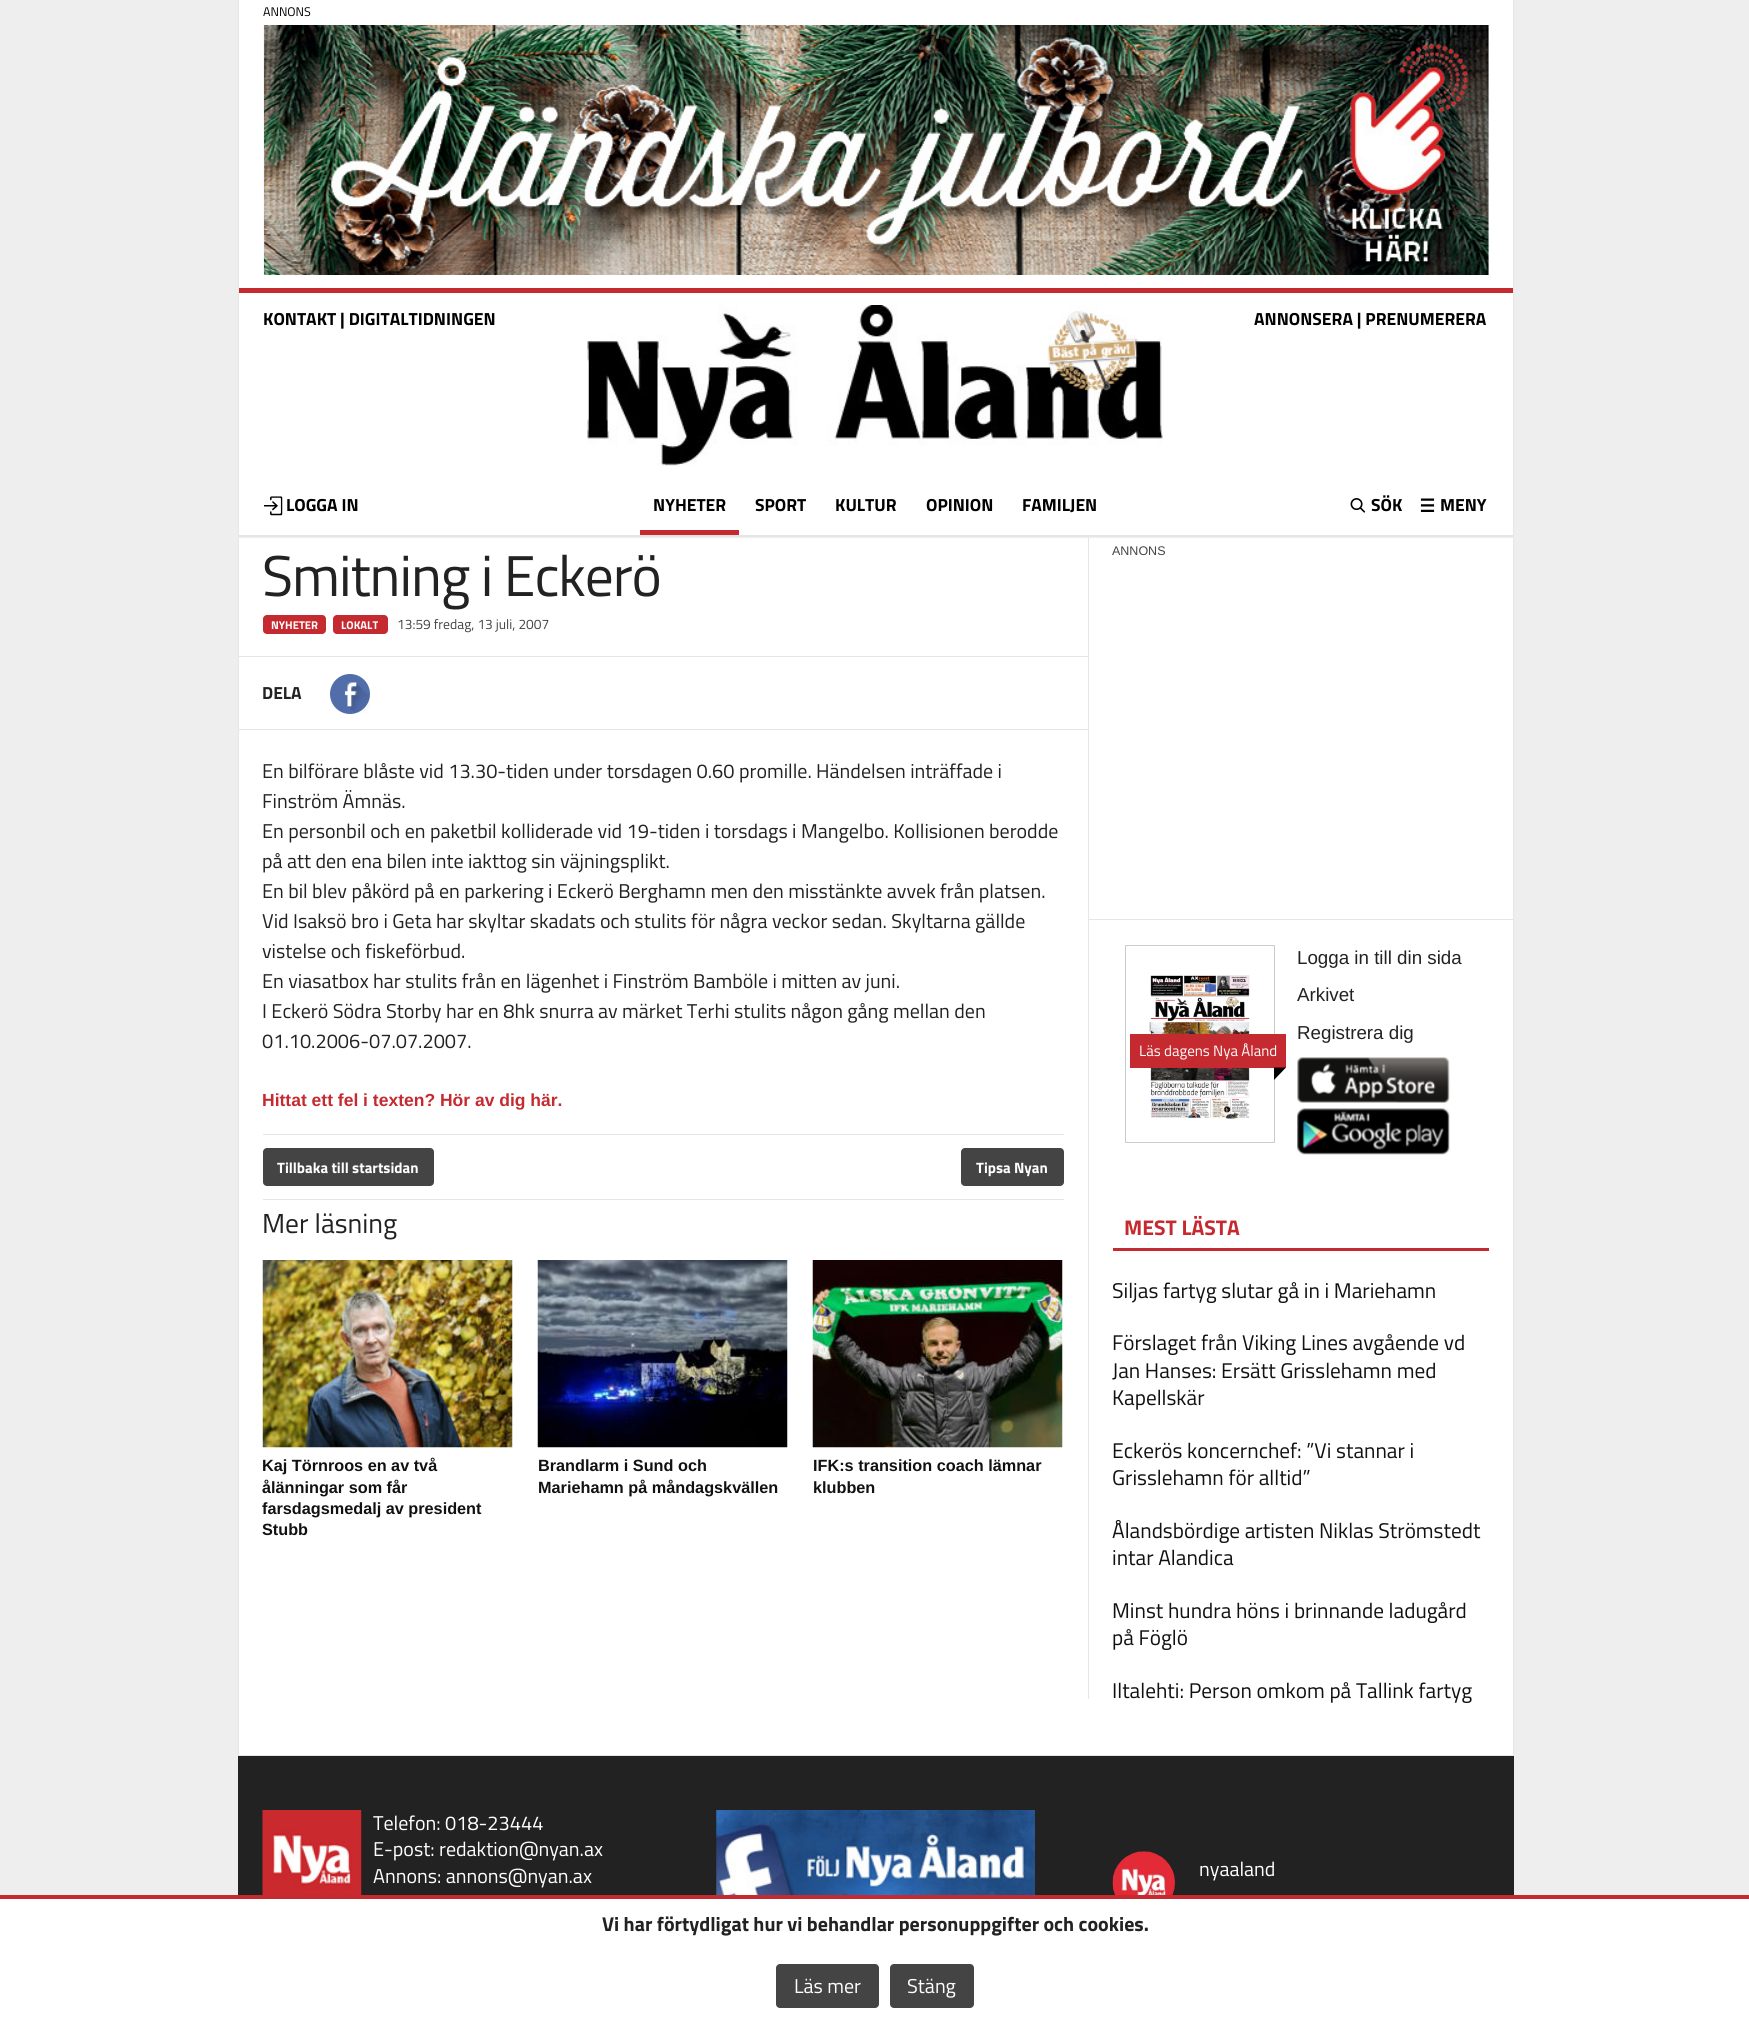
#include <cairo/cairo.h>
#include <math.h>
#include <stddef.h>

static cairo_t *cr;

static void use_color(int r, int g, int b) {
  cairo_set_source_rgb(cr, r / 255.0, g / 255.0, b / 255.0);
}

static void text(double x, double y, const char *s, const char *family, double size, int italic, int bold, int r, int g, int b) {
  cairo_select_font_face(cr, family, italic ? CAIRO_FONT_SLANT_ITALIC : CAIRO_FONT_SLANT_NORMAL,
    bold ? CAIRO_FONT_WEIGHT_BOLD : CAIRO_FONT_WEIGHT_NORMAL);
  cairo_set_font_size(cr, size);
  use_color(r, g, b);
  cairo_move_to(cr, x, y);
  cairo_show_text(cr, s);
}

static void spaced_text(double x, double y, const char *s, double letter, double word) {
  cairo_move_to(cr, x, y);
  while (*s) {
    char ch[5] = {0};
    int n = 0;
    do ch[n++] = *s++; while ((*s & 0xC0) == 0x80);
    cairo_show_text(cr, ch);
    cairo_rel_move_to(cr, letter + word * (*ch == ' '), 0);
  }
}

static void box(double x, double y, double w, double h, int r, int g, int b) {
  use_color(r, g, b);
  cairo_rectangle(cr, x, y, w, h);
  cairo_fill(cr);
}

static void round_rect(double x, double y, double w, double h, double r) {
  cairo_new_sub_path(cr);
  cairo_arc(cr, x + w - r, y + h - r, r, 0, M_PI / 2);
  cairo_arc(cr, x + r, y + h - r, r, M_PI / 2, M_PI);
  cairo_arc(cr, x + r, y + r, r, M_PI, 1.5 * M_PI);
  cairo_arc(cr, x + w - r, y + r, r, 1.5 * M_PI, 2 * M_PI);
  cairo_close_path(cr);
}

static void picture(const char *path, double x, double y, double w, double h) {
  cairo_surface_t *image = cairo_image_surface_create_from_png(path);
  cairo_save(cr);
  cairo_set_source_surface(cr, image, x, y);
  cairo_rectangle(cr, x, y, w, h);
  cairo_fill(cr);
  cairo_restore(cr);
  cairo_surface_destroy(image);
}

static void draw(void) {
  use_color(238, 238, 238);
  cairo_paint(cr);
  box(239, 0, 1274, 535, 255, 255, 255);
  box(1513, 0, 1, 536, 230, 230, 230);
  box(238, 0, 1, 536, 230, 230, 230);
  picture("img_01.png", 263, 25, 1226, 250);
  box(239, 288, 1274, 5, 197, 42, 48);
  box(239, 535, 1274, 1, 230, 230, 230);
  picture("img_02.png", 587, 305, 576, 161);
  picture("img_03.png", 264, 496, 19, 20);
  box(640, 530, 99, 5, 197, 42, 48);
  picture("img_04.png", 1350, 498, 16, 15);
  picture("img_05.png", 1420, 498, 15, 14);
  box(0, 1899, 1749, 121, 255, 255, 255);
  box(0, 1895, 1749, 4, 197, 42, 48);
  use_color(68, 68, 68);
  round_rect(776, 1964, 103, 44, 4);
  cairo_fill(cr);
  round_rect(890, 1964, 84, 44, 4);
  cairo_fill(cr);
  box(238, 536, 1276, 1, 230, 230, 230);
  box(239, 538, 1274, 1217, 255, 255, 255);
  box(238, 1755, 1276, 1, 230, 230, 230);
  box(238, 538, 1, 1217, 230, 230, 230);
  use_color(197, 42, 48);
  round_rect(263, 615, 63, 19, 4);
  cairo_fill(cr);
  round_rect(333, 615, 55, 19, 4);
  cairo_fill(cr);
  box(238, 656, 850, 1, 230, 230, 230);
  use_color(81, 110, 171);
  cairo_arc(cr, 350, 694, 20, 0, 2 * M_PI);
  cairo_fill(cr);
  picture("img_06.png", 344, 682, 26, 31);
  box(238, 729, 850, 1, 230, 230, 230);
  box(263, 1134, 801, 1, 230, 230, 230);
  box(263, 1199, 801, 1, 230, 230, 230);
  use_color(68, 68, 68);
  round_rect(263, 1148, 171, 38, 4);
  cairo_fill(cr);
  round_rect(961, 1148, 103, 38, 4);
  cairo_fill(cr);
  picture("img_07.png", 262, 1260, 251, 188);
  picture("img_08.png", 537, 1260, 251, 188);
  picture("img_09.png", 812, 1260, 251, 188);
  box(1088, 538, 1, 1161, 230, 230, 230);
  box(1088, 919, 425, 1, 230, 230, 230);
  picture("img_10.png", 1297, 1057, 153, 46);
  picture("img_11.png", 1297, 1108, 153, 47);
  cairo_rectangle(cr, 1125.5, 945.5, 149, 197);
  use_color(204, 204, 204);
  cairo_set_line_width(cr, 1);
  cairo_stroke(cr);
  picture("img_12.png", 1149, 975, 101, 144);
  box(1130, 1034, 156, 34, 197, 42, 48);
  use_color(0, 0, 0);
  cairo_new_path(cr);
  cairo_move_to(cr, 1274, 1067.5);
  cairo_line_to(cr, 1286, 1067.5);
  cairo_line_to(cr, 1274, 1080);
  cairo_close_path(cr);
  cairo_fill(cr);
  box(1113, 1248, 376, 3, 197, 42, 48);
  box(1513, 538, 1, 1217, 230, 230, 230);
  box(238, 1756, 1276, 139, 34, 34, 34);
  picture("img_13.png", 262, 1810, 100, 85);
  picture("img_14.png", 716, 1810, 319, 85);
  picture("img_15.png", 1112, 1851, 63, 44);
  text(263, 16, "ANNONS", "Titillium Web", 12.5, 0, 0, 0, 0, 0);
  text(263, 325, "KONTAKT | DIGITALTIDNINGEN", "Titillium Web", 17.5, 0, 1, 0, 0, 0);
  text(1254, 325, "ANNONSERA | PRENUMERERA", "Titillium Web", 17.5, 0, 1, 0, 0, 0);
  text(286, 511, "LOGGA IN", "Titillium Web", 17.5, 0, 1, 0, 0, 0);
  text(653, 511, "NYHETER", "Titillium Web", 17.5, 0, 1, 0, 0, 0);
  text(755, 511, "SPORT", "Titillium Web", 17.5, 0, 1, 0, 0, 0);
  text(835, 511, "KULTUR", "Titillium Web", 17.5, 0, 1, 0, 0, 0);
  text(926, 511, "OPINION", "Titillium Web", 17.5, 0, 1, 0, 0, 0);
  text(1022, 511, "FAMILJEN", "Titillium Web", 17.5, 0, 1, 0, 0, 0);
  text(1371, 511, "SÖK", "Titillium Web", 17.5, 0, 1, 0, 0, 0);
  text(1440, 511, "MENY", "Titillium Web", 17.5, 0, 1, 0, 0, 0);
  text(602, 1931, "Vi har förtydligat hur vi behandlar personuppgifter och cookies.", "Titillium Web", 20, 0, 1, 34, 34, 34);
  text(794, 1993, "Läs mer", "Titillium Web", 20, 0, 0, 255, 255, 255);
  text(907, 1993, "Stäng", "Titillium Web", 20, 0, 0, 255, 255, 255);
  cairo_set_font_size(cr, 57.5);
  use_color(34, 34, 34);
  spaced_text(262, 596, "Smitning i Eckerö", -1.1, 0);
  text(271, 629, "NYHETER", "Titillium Web", 11.25, 0, 1, 255, 255, 255);
  text(341, 629, "LOKALT", "Titillium Web", 11.25, 0, 1, 255, 255, 255);
  text(397, 629, "13:59 fredag, 13 juli, 2007", "Titillium Web", 13.75, 0, 0, 68, 68, 68);
  text(262, 699, "DELA", "Titillium Web", 17.5, 0, 1, 34, 34, 34);
  text(262, 778, "En bilförare blåste vid 13.30-tiden under torsdagen 0.60 promille. Händelsen inträffade i", "Titillium Web", 20, 0, 0, 34, 34, 34);
  text(262, 808, "Finström Ämnäs.", "Titillium Web", 20, 0, 0, 34, 34, 34);
  text(262, 838, "En personbil och en paketbil kolliderade vid 19-tiden i torsdags i Mangelbo. Kollisionen berodde", "Titillium Web", 20, 0, 0, 34, 34, 34);
  text(262, 868, "på att den ena bilen inte iakttog sin väjningsplikt.", "Titillium Web", 20, 0, 0, 34, 34, 34);
  text(262, 898, "En bil blev påkörd på en parkering i Eckerö Berghamn men den misstänkte avvek från platsen.", "Titillium Web", 20, 0, 0, 34, 34, 34);
  text(262, 928, "Vid Isaksö bro i Geta har skyltar skadats och stulits för några veckor sedan. Skyltarna gällde", "Titillium Web", 20, 0, 0, 34, 34, 34);
  text(262, 958, "vistelse och fiskeförbud.", "Titillium Web", 20, 0, 0, 34, 34, 34);
  text(262, 988, "En viasatbox har stulits från en lägenhet i Finström Bamböle i mitten av juni.", "Titillium Web", 20, 0, 0, 34, 34, 34);
  text(262, 1018, "I Eckerö Södra Storby har en 8hk snurra av märket Terhi stulits någon gång mellan den", "Titillium Web", 20, 0, 0, 34, 34, 34);
  text(262, 1048, "01.10.2006-07.07.2007.", "Titillium Web", 20, 0, 0, 34, 34, 34);
  text(262, 1106, "Hittat ett fel i texten? Hör av dig här.", "Liberation Sans", 17.5, 0, 1, 197, 42, 48);
  text(277, 1173, "Tillbaka till startsidan", "Titillium Web", 15, 0, 1, 255, 255, 255);
  text(976, 1173, "Tipsa Nyan", "Titillium Web", 15, 0, 1, 255, 255, 255);
  text(262, 1233, "Mer läsning", "Titillium Web", 27.5, 0, 0, 34, 34, 34);
  text(262, 1471, "Kaj Törnroos en av två", "Liberation Sans", 16.25, 0, 1, 17, 17, 17);
  text(262, 1493, "ålänningar som får", "Liberation Sans", 16.25, 0, 1, 17, 17, 17);
  text(262, 1514, "farsdagsmedalj av president", "Liberation Sans", 16.25, 0, 1, 17, 17, 17);
  text(262, 1535, "Stubb", "Liberation Sans", 16.25, 0, 1, 17, 17, 17);
  text(538, 1471, "Brandlarm i Sund och", "Liberation Sans", 16.25, 0, 1, 17, 17, 17);
  text(538, 1493, "Mariehamn på måndagskvällen", "Liberation Sans", 16.25, 0, 1, 17, 17, 17);
  text(813, 1471, "IFK:s transition coach lämnar", "Liberation Sans", 16.25, 0, 1, 17, 17, 17);
  text(813, 1493, "klubben", "Liberation Sans", 16.25, 0, 1, 17, 17, 17);
  text(1112, 555, "ANNONS", "Liberation Sans", 12.5, 0, 0, 68, 68, 68);
  text(1297, 964, "Logga in till din sida", "Liberation Sans", 18.75, 0, 0, 34, 34, 34);
  text(1297, 1001, "Arkivet", "Liberation Sans", 18.75, 0, 0, 34, 34, 34);
  text(1297, 1039, "Registrera dig", "Liberation Sans", 18.75, 0, 0, 34, 34, 34);
  text(1139, 1056, "Läs dagens Nya Åland", "Titillium Web", 15, 0, 0, 255, 255, 255);
  text(1124, 1235, "MEST LÄSTA", "Titillium Web", 21.25, 0, 1, 197, 42, 48);
  text(1112, 1298, "Siljas fartyg slutar gå in i Mariehamn", "Titillium Web", 21.25, 0, 0, 17, 17, 17);
  text(1112, 1350, "Förslaget från Viking Lines avgående vd", "Titillium Web", 21.25, 0, 0, 17, 17, 17);
  text(1112, 1378, "Jan Hanses: Ersätt Grisslehamn med", "Titillium Web", 21.25, 0, 0, 17, 17, 17);
  text(1112, 1405, "Kapellskär", "Titillium Web", 21.25, 0, 0, 17, 17, 17);
  text(1112, 1458, "Eckerös koncernchef: ”Vi stannar i", "Titillium Web", 21.25, 0, 0, 17, 17, 17);
  text(1112, 1485, "Grisslehamn för alltid”", "Titillium Web", 21.25, 0, 0, 17, 17, 17);
  text(1112, 1538, "Ålandsbördige artisten Niklas Strömstedt", "Titillium Web", 21.25, 0, 0, 17, 17, 17);
  text(1112, 1565, "intar Alandica", "Titillium Web", 21.25, 0, 0, 17, 17, 17);
  text(1112, 1618, "Minst hundra höns i brinnande ladugård", "Titillium Web", 21.25, 0, 0, 17, 17, 17);
  text(1112, 1645, "på Föglö", "Titillium Web", 21.25, 0, 0, 17, 17, 17);
  text(1112, 1698, "Iltalehti: Person omkom på Tallink fartyg", "Titillium Web", 21.25, 0, 0, 17, 17, 17);
  text(373, 1830, "Telefon: 018-23444", "Titillium Web", 20, 0, 0, 255, 255, 255);
  text(373, 1856, "E-post: redaktion@nyan.ax", "Titillium Web", 20, 0, 0, 255, 255, 255);
  text(373, 1883, "Annons: annons@nyan.ax", "Titillium Web", 20, 0, 0, 255, 255, 255);
  text(1199, 1876, "nyaaland", "Titillium Web", 20, 0, 0, 255, 255, 255);
}

int main(void) {
  cairo_surface_t *surface = cairo_image_surface_create(CAIRO_FORMAT_RGB24, 1749, 2020);
  cr = cairo_create(surface);
  cairo_font_options_t *options = cairo_font_options_create();
  cairo_font_options_set_hint_metrics(options, CAIRO_HINT_METRICS_OFF);
  cairo_font_options_set_hint_style(options, CAIRO_HINT_STYLE_NONE);
  cairo_set_font_options(cr, options);
  cairo_set_miter_limit(cr, 4);
  draw();
  cairo_surface_write_to_png(surface, "out.png");
  cairo_font_options_destroy(options);
  cairo_destroy(cr);
  cairo_surface_destroy(surface);
  return 0;
}
